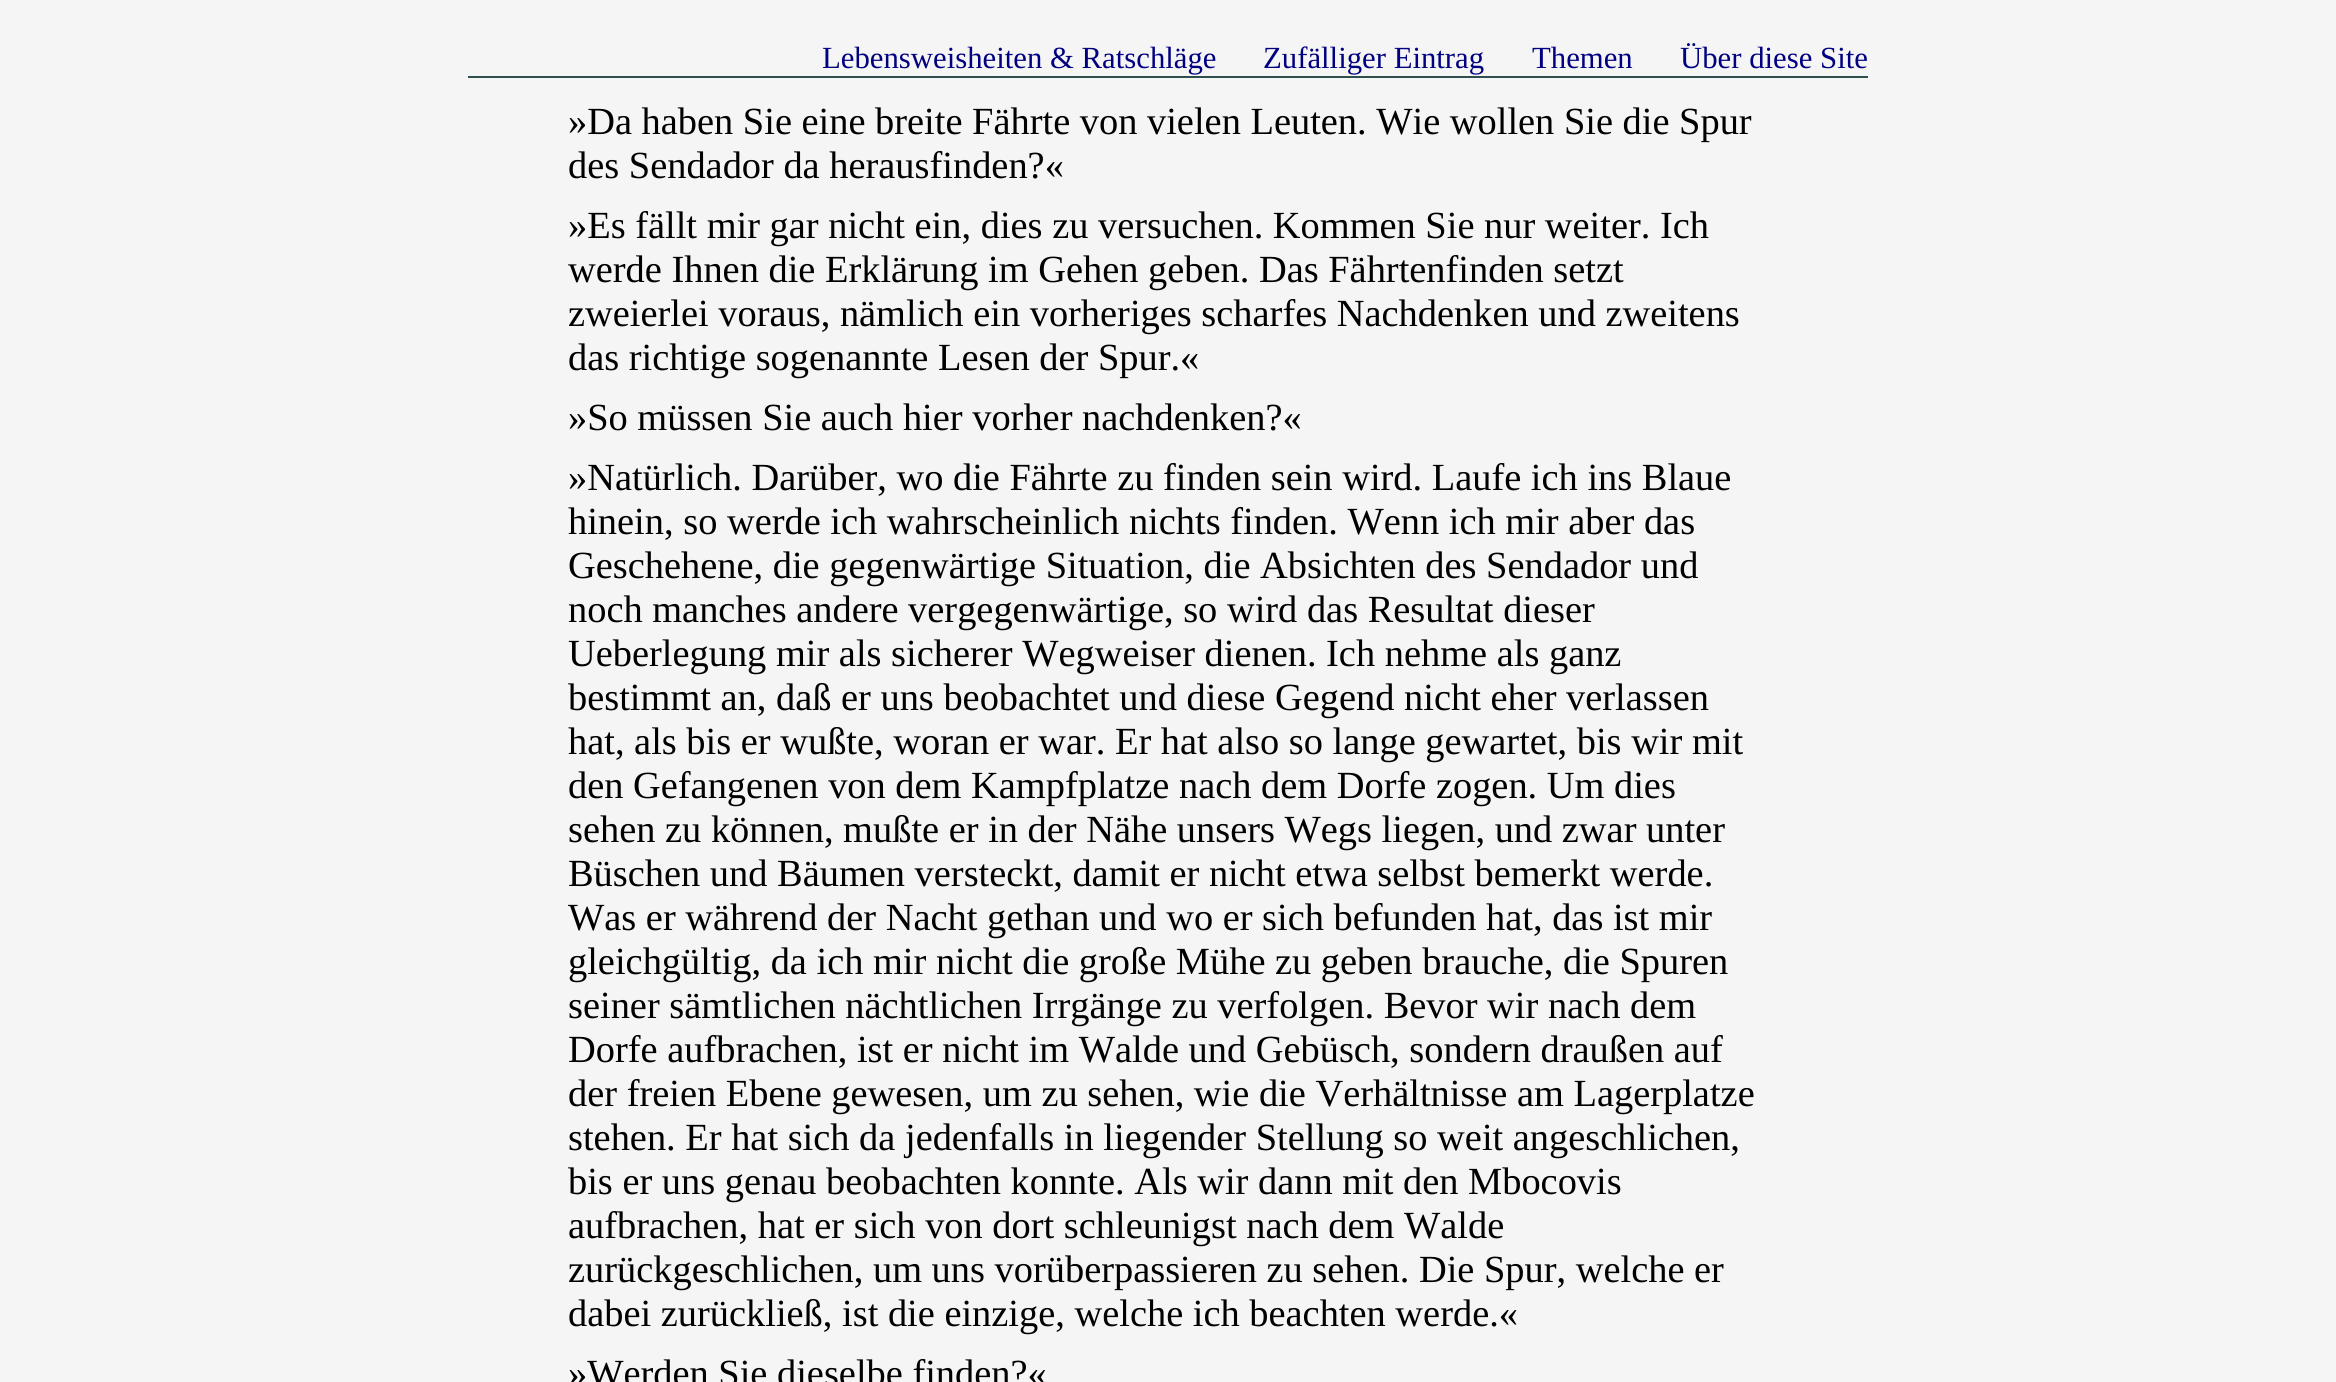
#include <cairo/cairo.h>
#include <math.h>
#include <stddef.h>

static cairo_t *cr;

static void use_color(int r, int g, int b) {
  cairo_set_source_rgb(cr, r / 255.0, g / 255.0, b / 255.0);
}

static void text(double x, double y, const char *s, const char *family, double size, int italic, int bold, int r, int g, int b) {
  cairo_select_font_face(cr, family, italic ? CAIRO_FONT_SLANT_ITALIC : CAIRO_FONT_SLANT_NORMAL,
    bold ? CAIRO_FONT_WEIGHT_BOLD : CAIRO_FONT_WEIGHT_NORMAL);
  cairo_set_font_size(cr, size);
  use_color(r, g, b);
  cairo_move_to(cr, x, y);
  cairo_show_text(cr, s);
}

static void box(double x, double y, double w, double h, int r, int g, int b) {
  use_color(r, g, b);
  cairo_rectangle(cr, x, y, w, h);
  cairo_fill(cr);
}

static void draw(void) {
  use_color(245, 245, 245);
  cairo_paint(cr);
  box(468, 76, 1400, 2, 47, 79, 79);
  text(822, 68, "Lebensweisheiten & Ratschläge", "Liberation Serif", 30.75, 0, 0, 0, 0, 128);
  text(1263, 68, "Zufälliger Eintrag", "Liberation Serif", 30.75, 0, 0, 0, 0, 128);
  text(1532, 68, "Themen", "Liberation Serif", 30.75, 0, 0, 0, 0, 128);
  text(1680, 68, "Über diese Site", "Liberation Serif", 30.75, 0, 0, 0, 0, 128);
  text(568, 134, "»Da haben Sie eine breite Fährte von vielen Leuten. Wie wollen Sie die Spur", "Liberation Serif", 38.4, 0, 0, 0, 0, 0);
  text(568, 178, "des Sendador da herausfinden?«", "Liberation Serif", 38.4, 0, 0, 0, 0, 0);
  text(568, 238, "»Es fällt mir gar nicht ein, dies zu versuchen. Kommen Sie nur weiter. Ich", "Liberation Serif", 38.4, 0, 0, 0, 0, 0);
  text(568, 282, "werde Ihnen die Erklärung im Gehen geben. Das Fährtenfinden setzt", "Liberation Serif", 38.4, 0, 0, 0, 0, 0);
  text(568, 326, "zweierlei voraus, nämlich ein vorheriges scharfes Nachdenken und zweitens", "Liberation Serif", 38.4, 0, 0, 0, 0, 0);
  text(568, 370, "das richtige sogenannte Lesen der Spur.«", "Liberation Serif", 38.4, 0, 0, 0, 0, 0);
  text(568, 430, "»So müssen Sie auch hier vorher nachdenken?«", "Liberation Serif", 38.4, 0, 0, 0, 0, 0);
  text(568, 490, "»Natürlich. Darüber, wo die Fährte zu finden sein wird. Laufe ich ins Blaue", "Liberation Serif", 38.4, 0, 0, 0, 0, 0);
  text(568, 534, "hinein, so werde ich wahrscheinlich nichts finden. Wenn ich mir aber das", "Liberation Serif", 38.4, 0, 0, 0, 0, 0);
  text(568, 578, "Geschehene, die gegenwärtige Situation, die Absichten des Sendador und", "Liberation Serif", 38.4, 0, 0, 0, 0, 0);
  text(568, 622, "noch manches andere vergegenwärtige, so wird das Resultat dieser", "Liberation Serif", 38.4, 0, 0, 0, 0, 0);
  text(568, 666, "Ueberlegung mir als sicherer Wegweiser dienen. Ich nehme als ganz", "Liberation Serif", 38.4, 0, 0, 0, 0, 0);
  text(568, 710, "bestimmt an, daß er uns beobachtet und diese Gegend nicht eher verlassen", "Liberation Serif", 38.4, 0, 0, 0, 0, 0);
  text(568, 754, "hat, als bis er wußte, woran er war. Er hat also so lange gewartet, bis wir mit", "Liberation Serif", 38.4, 0, 0, 0, 0, 0);
  text(568, 798, "den Gefangenen von dem Kampfplatze nach dem Dorfe zogen. Um dies", "Liberation Serif", 38.4, 0, 0, 0, 0, 0);
  text(568, 842, "sehen zu können, mußte er in der Nähe unsers Wegs liegen, und zwar unter", "Liberation Serif", 38.4, 0, 0, 0, 0, 0);
  text(568, 886, "Büschen und Bäumen versteckt, damit er nicht etwa selbst bemerkt werde.", "Liberation Serif", 38.4, 0, 0, 0, 0, 0);
  text(568, 930, "Was er während der Nacht gethan und wo er sich befunden hat, das ist mir", "Liberation Serif", 38.4, 0, 0, 0, 0, 0);
  text(568, 974, "gleichgültig, da ich mir nicht die große Mühe zu geben brauche, die Spuren", "Liberation Serif", 38.4, 0, 0, 0, 0, 0);
  text(568, 1018, "seiner sämtlichen nächtlichen Irrgänge zu verfolgen. Bevor wir nach dem", "Liberation Serif", 38.4, 0, 0, 0, 0, 0);
  text(568, 1062, "Dorfe aufbrachen, ist er nicht im Walde und Gebüsch, sondern draußen auf", "Liberation Serif", 38.4, 0, 0, 0, 0, 0);
  text(568, 1106, "der freien Ebene gewesen, um zu sehen, wie die Verhältnisse am Lagerplatze", "Liberation Serif", 38.4, 0, 0, 0, 0, 0);
  text(568, 1150, "stehen. Er hat sich da jedenfalls in liegender Stellung so weit angeschlichen,", "Liberation Serif", 38.4, 0, 0, 0, 0, 0);
  text(568, 1194, "bis er uns genau beobachten konnte. Als wir dann mit den Mbocovis", "Liberation Serif", 38.4, 0, 0, 0, 0, 0);
  text(568, 1238, "aufbrachen, hat er sich von dort schleunigst nach dem Walde", "Liberation Serif", 38.4, 0, 0, 0, 0, 0);
  text(568, 1282, "zurückgeschlichen, um uns vorüberpassieren zu sehen. Die Spur, welche er", "Liberation Serif", 38.4, 0, 0, 0, 0, 0);
  text(568, 1326, "dabei zurückließ, ist die einzige, welche ich beachten werde.«", "Liberation Serif", 38.4, 0, 0, 0, 0, 0);
  text(568, 1386, "»Werden Sie dieselbe finden?«", "Liberation Serif", 38.4, 0, 0, 0, 0, 0);
}

int main(void) {
  cairo_surface_t *surface = cairo_image_surface_create(CAIRO_FORMAT_RGB24, 2336, 1382);
  cr = cairo_create(surface);
  cairo_font_options_t *options = cairo_font_options_create();
  cairo_font_options_set_hint_metrics(options, CAIRO_HINT_METRICS_OFF);
  cairo_font_options_set_hint_style(options, CAIRO_HINT_STYLE_NONE);
  cairo_set_font_options(cr, options);
  cairo_set_miter_limit(cr, 4);
  draw();
  cairo_surface_write_to_png(surface, "out.png");
  cairo_font_options_destroy(options);
  cairo_destroy(cr);
  cairo_surface_destroy(surface);
  return 0;
}
